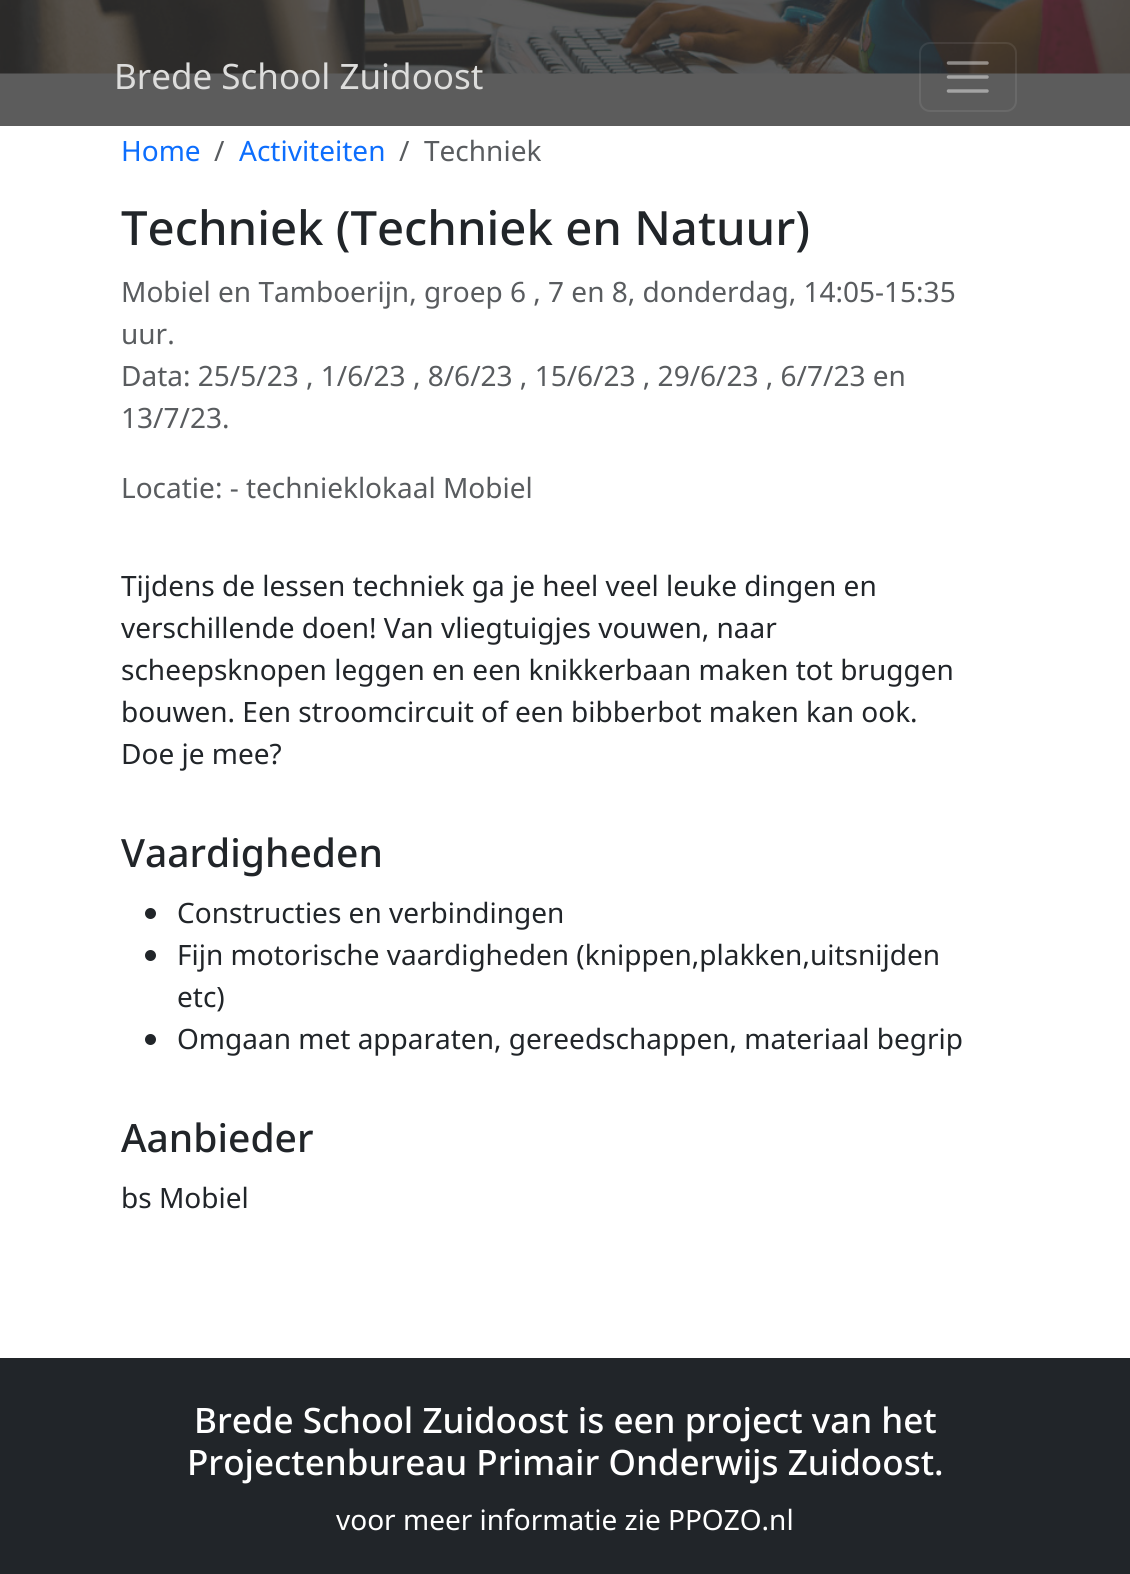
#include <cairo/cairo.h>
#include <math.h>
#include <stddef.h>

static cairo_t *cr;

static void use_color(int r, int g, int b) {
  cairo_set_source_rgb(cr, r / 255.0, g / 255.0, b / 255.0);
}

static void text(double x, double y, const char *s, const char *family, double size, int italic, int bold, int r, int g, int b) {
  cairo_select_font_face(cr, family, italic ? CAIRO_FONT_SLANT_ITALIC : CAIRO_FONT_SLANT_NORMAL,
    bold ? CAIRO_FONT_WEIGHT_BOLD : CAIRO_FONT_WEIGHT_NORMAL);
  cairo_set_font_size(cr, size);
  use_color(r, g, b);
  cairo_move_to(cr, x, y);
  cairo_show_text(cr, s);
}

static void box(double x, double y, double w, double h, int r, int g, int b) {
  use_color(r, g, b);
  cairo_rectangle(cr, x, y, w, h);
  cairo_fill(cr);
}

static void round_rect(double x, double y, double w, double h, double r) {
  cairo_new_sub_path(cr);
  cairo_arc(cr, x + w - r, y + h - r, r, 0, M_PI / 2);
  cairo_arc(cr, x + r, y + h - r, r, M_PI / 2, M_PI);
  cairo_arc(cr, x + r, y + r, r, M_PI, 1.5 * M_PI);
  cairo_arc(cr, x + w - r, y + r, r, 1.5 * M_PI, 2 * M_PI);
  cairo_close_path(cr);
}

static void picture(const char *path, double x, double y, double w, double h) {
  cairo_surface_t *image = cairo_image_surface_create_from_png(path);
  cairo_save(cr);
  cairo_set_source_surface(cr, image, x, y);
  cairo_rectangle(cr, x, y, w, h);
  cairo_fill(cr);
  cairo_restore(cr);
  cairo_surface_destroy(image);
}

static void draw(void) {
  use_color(255, 255, 255);
  cairo_paint(cr);
  box(0, 73, 1130, 53, 92, 92, 92);
  picture("img_01.png", 0, 0, 1130, 74);
  round_rect(920, 43, 96, 68, 10);
  cairo_set_source_rgba(cr, 1, 1, 1, 0.08);
  cairo_stroke(cr);
  cairo_new_path(cr);
  cairo_move_to(cr, 948.5, 63);
  cairo_line_to(cr, 987, 63);
  cairo_move_to(cr, 948.5, 77);
  cairo_line_to(cr, 987, 77);
  cairo_move_to(cr, 948.5, 91);
  cairo_line_to(cr, 987, 91);
  cairo_set_source_rgba(cr, 1, 1, 1, 0.44);
  cairo_set_line_width(cr, 3.5);
  cairo_set_line_cap(cr, CAIRO_LINE_CAP_ROUND);
  cairo_stroke(cr);
  use_color(33, 37, 41);
  cairo_arc(cr, 150.5, 913.5, 5.5, 0, 2 * M_PI);
  cairo_fill(cr);
  cairo_arc(cr, 150.5, 955.5, 5.5, 0, 2 * M_PI);
  cairo_fill(cr);
  cairo_arc(cr, 150.5, 1039.5, 5.5, 0, 2 * M_PI);
  cairo_fill(cr);
  box(0, 1358, 1130, 216, 33, 37, 41);
  text(114, 89, "Brede School Zuidoost", "Noto Sans", 35, 0, 0, 221, 221, 220);
  text(121, 161, "Home", "Noto Sans", 28, 0, 0, 13, 110, 253);
  text(214, 161, "/", "Noto Sans", 28, 0, 0, 89, 92, 95);
  text(239, 161, "Activiteiten", "Noto Sans", 28, 0, 0, 13, 110, 253);
  text(399, 161, "/", "Noto Sans", 28, 0, 0, 89, 92, 95);
  text(424, 161, "Techniek", "Noto Sans", 28, 0, 0, 89, 92, 95);
  text(121, 245, "Techniek (Techniek en Natuur)", "Noto Sans Medium", 47.25, 0, 0, 33, 37, 41);
  text(121, 302, "Mobiel en Tamboerijn, groep 6 , 7 en 8, donderdag, 14:05-15:35", "Noto Sans", 28, 0, 0, 89, 92, 95);
  text(121, 344, "uur.", "Noto Sans", 28, 0, 0, 89, 92, 95);
  text(121, 386, "Data: 25/5/23 , 1/6/23 , 8/6/23 , 15/6/23 , 29/6/23 , 6/7/23 en", "Noto Sans", 28, 0, 0, 89, 92, 95);
  text(121, 428, "13/7/23.", "Noto Sans", 28, 0, 0, 89, 92, 95);
  text(121, 498, "Locatie: - technieklokaal Mobiel", "Noto Sans", 28, 0, 0, 89, 92, 95);
  text(121, 596, "Tijdens de lessen techniek ga je heel veel leuke dingen en", "Noto Sans", 28, 0, 0, 33, 37, 41);
  text(121, 638, "verschillende doen! Van vliegtuigjes vouwen, naar", "Noto Sans", 28, 0, 0, 33, 37, 41);
  text(121, 680, "scheepsknopen leggen en een knikkerbaan maken tot bruggen", "Noto Sans", 28, 0, 0, 33, 37, 41);
  text(121, 722, "bouwen. Een stroomcircuit of een bibberbot maken kan ook.", "Noto Sans", 28, 0, 0, 33, 37, 41);
  text(121, 764, "Doe je mee?", "Noto Sans", 28, 0, 0, 33, 37, 41);
  text(121, 867, "Vaardigheden", "Noto Sans Medium", 39, 0, 0, 33, 37, 41);
  text(177, 923, "Constructies en verbindingen", "Noto Sans", 28, 0, 0, 33, 37, 41);
  text(177, 965, "Fijn motorische vaardigheden (knippen,plakken,uitsnijden", "Noto Sans", 28, 0, 0, 33, 37, 41);
  text(177, 1007, "etc)", "Noto Sans", 28, 0, 0, 33, 37, 41);
  text(177, 1049, "Omgaan met apparaten, gereedschappen, materiaal begrip", "Noto Sans", 28, 0, 0, 33, 37, 41);
  text(121, 1152, "Aanbieder", "Noto Sans Medium", 39, 0, 0, 33, 37, 41);
  text(121, 1208, "bs Mobiel", "Noto Sans", 28, 0, 0, 33, 37, 41);
  text(194, 1433, "Brede School Zuidoost is een project van het", "Noto Sans Medium", 35, 0, 0, 255, 255, 255);
  text(187, 1475, "Projectenbureau Primair Onderwijs Zuidoost.", "Noto Sans Medium", 35, 0, 0, 255, 255, 255);
  text(336, 1530, "voor meer informatie zie PPOZO.nl", "Noto Sans", 28, 0, 0, 255, 255, 255);
}

int main(void) {
  cairo_surface_t *surface = cairo_image_surface_create(CAIRO_FORMAT_RGB24, 1130, 1574);
  cr = cairo_create(surface);
  cairo_font_options_t *options = cairo_font_options_create();
  cairo_font_options_set_hint_metrics(options, CAIRO_HINT_METRICS_OFF);
  cairo_font_options_set_hint_style(options, CAIRO_HINT_STYLE_NONE);
  cairo_set_font_options(cr, options);
  cairo_set_miter_limit(cr, 4);
  draw();
  cairo_surface_write_to_png(surface, "out.png");
  cairo_font_options_destroy(options);
  cairo_destroy(cr);
  cairo_surface_destroy(surface);
  return 0;
}
